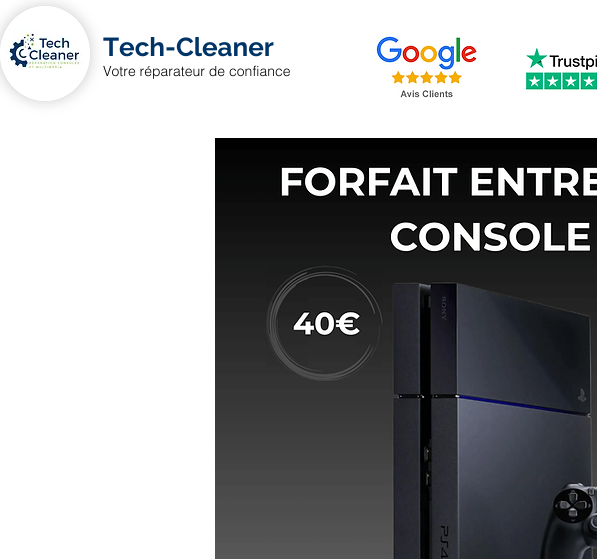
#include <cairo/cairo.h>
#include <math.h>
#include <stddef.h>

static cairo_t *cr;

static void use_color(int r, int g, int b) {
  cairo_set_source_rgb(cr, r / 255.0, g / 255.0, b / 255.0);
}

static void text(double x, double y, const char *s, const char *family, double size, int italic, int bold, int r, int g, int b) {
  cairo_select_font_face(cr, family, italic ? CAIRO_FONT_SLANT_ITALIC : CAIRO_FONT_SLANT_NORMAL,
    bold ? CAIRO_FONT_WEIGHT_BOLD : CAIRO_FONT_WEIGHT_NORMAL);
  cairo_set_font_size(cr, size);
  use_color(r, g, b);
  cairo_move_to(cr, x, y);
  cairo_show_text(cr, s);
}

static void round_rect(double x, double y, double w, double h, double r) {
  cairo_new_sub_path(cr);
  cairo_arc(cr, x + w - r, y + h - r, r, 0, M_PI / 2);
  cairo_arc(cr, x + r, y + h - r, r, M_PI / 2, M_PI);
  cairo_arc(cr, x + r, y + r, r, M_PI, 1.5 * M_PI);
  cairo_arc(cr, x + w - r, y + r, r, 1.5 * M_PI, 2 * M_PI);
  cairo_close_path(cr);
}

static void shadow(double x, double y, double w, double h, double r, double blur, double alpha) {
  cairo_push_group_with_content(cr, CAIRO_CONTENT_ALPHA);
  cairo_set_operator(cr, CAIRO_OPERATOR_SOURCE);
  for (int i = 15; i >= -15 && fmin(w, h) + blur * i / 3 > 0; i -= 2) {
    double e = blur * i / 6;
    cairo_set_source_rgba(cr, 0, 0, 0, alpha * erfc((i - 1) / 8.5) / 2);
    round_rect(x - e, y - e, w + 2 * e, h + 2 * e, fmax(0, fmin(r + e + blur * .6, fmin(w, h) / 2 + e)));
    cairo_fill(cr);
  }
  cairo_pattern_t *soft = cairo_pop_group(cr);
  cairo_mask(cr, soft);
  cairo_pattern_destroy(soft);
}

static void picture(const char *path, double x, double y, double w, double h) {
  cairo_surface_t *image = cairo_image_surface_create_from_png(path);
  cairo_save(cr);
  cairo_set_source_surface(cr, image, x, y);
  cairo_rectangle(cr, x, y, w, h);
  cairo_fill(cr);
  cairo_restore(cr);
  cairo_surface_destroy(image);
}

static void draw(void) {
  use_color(255, 255, 255);
  cairo_paint(cr);
  use_color(0, 0, 0);
  shadow(0, 6, 90, 95, 45, 7, 0.2);
  use_color(255, 255, 255);
  cairo_new_path(cr);
  cairo_move_to(cr, 45, 6);
  cairo_curve_to(cr, 70, 6, 90, 27.5, 90, 53.5);
  cairo_curve_to(cr, 90, 79.5, 70, 101, 45, 101);
  cairo_curve_to(cr, 20, 101, 0, 79.5, 0, 53.5);
  cairo_curve_to(cr, 0, 27.5, 20, 6, 45, 6);
  cairo_close_path(cr);
  cairo_fill(cr);
  cairo_new_path(cr);
  cairo_move_to(cr, 45, 9);
  cairo_curve_to(cr, 68, 9, 87, 29, 87, 53.5);
  cairo_curve_to(cr, 87, 78, 68, 98, 45, 98);
  cairo_curve_to(cr, 22, 98, 3, 78, 3, 53.5);
  cairo_curve_to(cr, 3, 29, 22, 9, 45, 9);
  cairo_close_path(cr);
  cairo_set_line_width(cr, 6);
  cairo_stroke(cr);
  picture("img_01.png", 6, 28, 76, 41);
  picture("img_02.png", 376, 36, 101, 62);
  picture("img_03.png", 526, 47, 71, 45);
  picture("img_04.png", 215, 138, 382, 421);
  text(103, 56, "Tech-Cleaner", "Raleway", 26, 0, 1, 0, 51, 102);
  text(103, 76, "Votre réparateur de confiance", "helvetica Light", 14, 0, 0, 0, 0, 0);
}

int main(void) {
  cairo_surface_t *surface = cairo_image_surface_create(CAIRO_FORMAT_RGB24, 597, 559);
  cr = cairo_create(surface);
  cairo_font_options_t *options = cairo_font_options_create();
  cairo_font_options_set_hint_metrics(options, CAIRO_HINT_METRICS_OFF);
  cairo_font_options_set_hint_style(options, CAIRO_HINT_STYLE_NONE);
  cairo_set_font_options(cr, options);
  cairo_set_miter_limit(cr, 4);
  draw();
  cairo_surface_write_to_png(surface, "out.png");
  cairo_font_options_destroy(options);
  cairo_destroy(cr);
  cairo_surface_destroy(surface);
  return 0;
}
